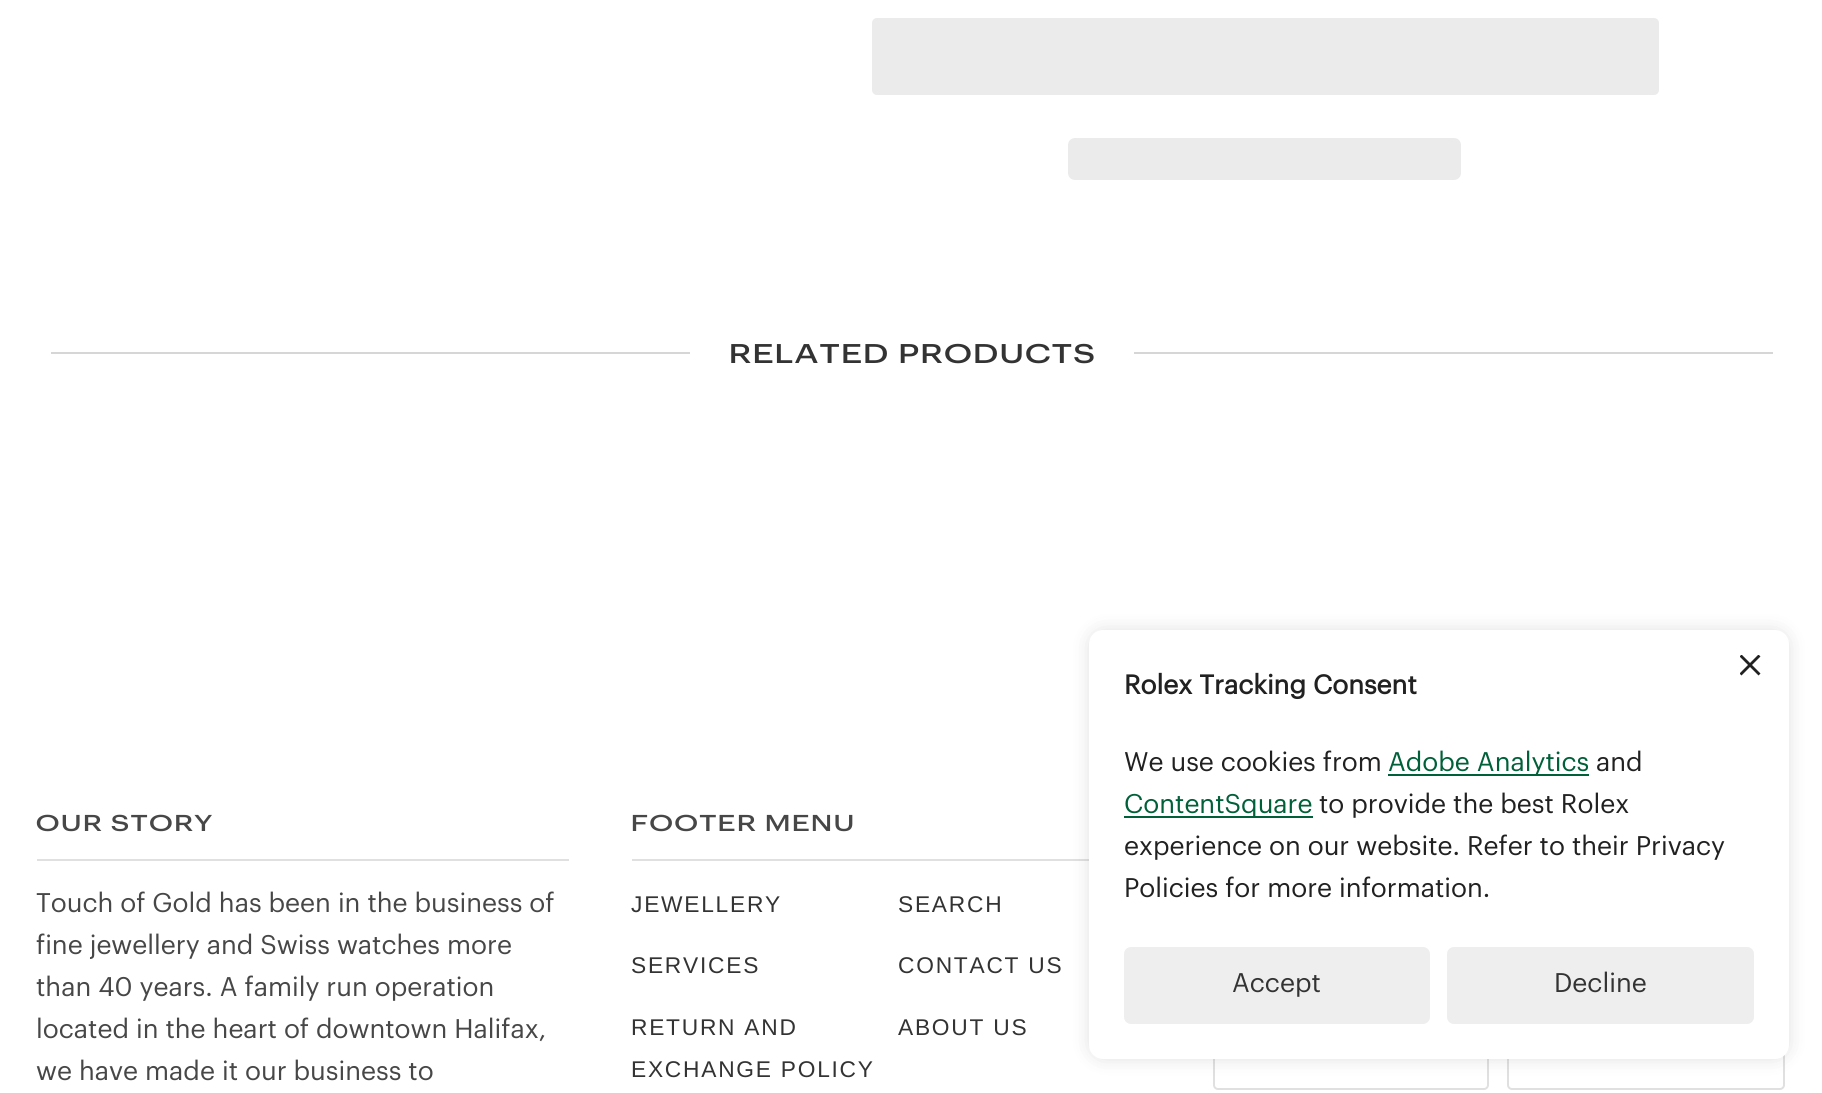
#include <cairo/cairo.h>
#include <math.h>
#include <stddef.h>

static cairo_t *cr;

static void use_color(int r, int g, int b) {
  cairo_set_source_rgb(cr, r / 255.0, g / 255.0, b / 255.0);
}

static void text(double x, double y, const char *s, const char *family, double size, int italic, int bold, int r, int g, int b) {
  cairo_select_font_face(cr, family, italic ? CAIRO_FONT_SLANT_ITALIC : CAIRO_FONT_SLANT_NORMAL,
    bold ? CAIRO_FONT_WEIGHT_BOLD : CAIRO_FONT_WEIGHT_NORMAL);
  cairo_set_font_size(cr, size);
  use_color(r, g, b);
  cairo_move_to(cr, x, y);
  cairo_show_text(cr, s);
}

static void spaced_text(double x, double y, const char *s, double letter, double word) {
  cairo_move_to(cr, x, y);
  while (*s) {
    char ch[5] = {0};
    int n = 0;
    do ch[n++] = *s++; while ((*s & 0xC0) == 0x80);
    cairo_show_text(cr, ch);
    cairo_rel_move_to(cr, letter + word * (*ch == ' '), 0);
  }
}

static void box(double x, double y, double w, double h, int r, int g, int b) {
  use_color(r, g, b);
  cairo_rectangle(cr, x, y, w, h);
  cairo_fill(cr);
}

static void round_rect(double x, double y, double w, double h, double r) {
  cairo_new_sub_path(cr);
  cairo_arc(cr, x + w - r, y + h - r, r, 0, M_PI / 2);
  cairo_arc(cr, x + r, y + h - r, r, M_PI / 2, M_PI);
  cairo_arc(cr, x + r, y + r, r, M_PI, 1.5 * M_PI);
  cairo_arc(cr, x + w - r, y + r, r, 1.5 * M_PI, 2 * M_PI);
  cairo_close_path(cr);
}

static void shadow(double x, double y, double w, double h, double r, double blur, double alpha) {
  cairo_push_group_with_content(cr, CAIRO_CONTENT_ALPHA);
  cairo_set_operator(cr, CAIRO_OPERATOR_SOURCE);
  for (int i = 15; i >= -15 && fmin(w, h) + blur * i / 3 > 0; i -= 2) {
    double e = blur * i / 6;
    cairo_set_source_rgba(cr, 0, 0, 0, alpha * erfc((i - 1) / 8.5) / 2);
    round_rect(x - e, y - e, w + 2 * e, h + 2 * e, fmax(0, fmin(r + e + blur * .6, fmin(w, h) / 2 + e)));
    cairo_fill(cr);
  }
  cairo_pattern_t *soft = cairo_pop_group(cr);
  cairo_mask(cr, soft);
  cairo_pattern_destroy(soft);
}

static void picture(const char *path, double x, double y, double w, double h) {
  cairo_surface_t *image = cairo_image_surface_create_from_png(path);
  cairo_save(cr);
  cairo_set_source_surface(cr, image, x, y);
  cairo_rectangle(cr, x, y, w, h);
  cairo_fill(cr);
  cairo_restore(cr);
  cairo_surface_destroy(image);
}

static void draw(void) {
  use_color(255, 255, 255);
  cairo_paint(cr);
  use_color(235, 235, 235);
  round_rect(872, 18, 787, 77, 5);
  cairo_fill(cr);
  round_rect(1068, 138, 393, 42, 7);
  cairo_fill(cr);
  box(51, 352, 639, 2, 214, 214, 214);
  box(1134, 352, 639, 2, 214, 214, 214);
  box(37, 859, 532, 2, 224, 224, 224);
  box(632, 859, 457, 2, 224, 224, 224);
  round_rect(1214, 1021, 274, 68, 4);
  cairo_stroke(cr);
  round_rect(1508, 1021, 276, 68, 4);
  cairo_stroke(cr);
  use_color(51, 51, 51);
  shadow(1089, 630, 700, 429, 14, 9, 0.15);
  use_color(255, 255, 255);
  round_rect(1089, 630, 700, 429, 14);
  cairo_fill(cr);
  picture("img_01.png", 1740, 655, 21, 21);
  box(1388, 774, 201, 2, 0, 96, 57);
  box(1124, 816, 189, 2, 0, 96, 57);
  use_color(238, 238, 238);
  round_rect(1124, 947, 306, 77, 7);
  cairo_fill(cr);
  round_rect(1447, 947, 307, 77, 7);
  cairo_fill(cr);
  cairo_select_font_face(cr, "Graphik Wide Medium", CAIRO_FONT_SLANT_NORMAL, CAIRO_FONT_WEIGHT_NORMAL);
  cairo_set_font_size(cr, 26.5);
  use_color(51, 51, 51);
  spaced_text(729, 363, "RELATED PRODUCTS", 1.75, 0);
  cairo_set_font_size(cr, 22.5);
  use_color(71, 71, 71);
  spaced_text(36, 831, "OUR STORY", 1.75, 0);
  text(36, 912, "Touch of Gold has been in the business of", "Graphik", 26.4, 0, 0, 71, 71, 71);
  text(36, 954, "fine jewellery and Swiss watches more", "Graphik", 26.4, 0, 0, 71, 71, 71);
  text(36, 996, "than 40 years. A family run operation", "Graphik", 26.4, 0, 0, 71, 71, 71);
  text(36, 1038, "located in the heart of downtown Halifax,", "Graphik", 26.4, 0, 0, 71, 71, 71);
  text(36, 1080, "we have made it our business to", "Graphik", 26.4, 0, 0, 71, 71, 71);
  cairo_select_font_face(cr, "Graphik Wide Medium", CAIRO_FONT_SLANT_NORMAL, CAIRO_FONT_WEIGHT_NORMAL);
  cairo_set_font_size(cr, 22.5);
  spaced_text(631, 831, "FOOTER MENU", 1.75, 0);
  cairo_select_font_face(cr, "Liberation Sans", CAIRO_FONT_SLANT_NORMAL, CAIRO_FONT_WEIGHT_NORMAL);
  cairo_set_font_size(cr, 22.75);
  use_color(51, 51, 51);
  spaced_text(631, 912, "JEWELLERY", 1.75, 0);
  spaced_text(898, 912, "SEARCH", 1.75, 0);
  spaced_text(631, 973, "SERVICES", 1.75, 0);
  spaced_text(898, 973, "CONTACT US", 1.75, 0);
  spaced_text(631, 1035, "RETURN AND", 1.75, 0);
  spaced_text(631, 1077, "EXCHANGE POLICY", 1.75, 0);
  spaced_text(898, 1035, "ABOUT US", 1.75, 0);
  text(1124, 694, "Rolex Tracking Consent", "Graphik", 26.4, 0, 1, 33, 33, 33);
  text(1124, 771, "We use cookies from", "Graphik", 26.4, 0, 0, 33, 33, 33);
  text(1388, 771, "Adobe Analytics", "Graphik", 26.4, 0, 0, 0, 96, 57);
  text(1596, 771, "and", "Graphik", 26.4, 0, 0, 33, 33, 33);
  text(1124, 813, "ContentSquare", "Graphik", 26.4, 0, 0, 0, 96, 57);
  text(1319, 813, "to provide the best Rolex", "Graphik", 26.4, 0, 0, 33, 33, 33);
  text(1124, 855, "experience on our website. Refer to their Privacy", "Graphik", 26.4, 0, 0, 33, 33, 33);
  text(1124, 897, "Policies for more information.", "Graphik", 26.4, 0, 0, 33, 33, 33);
  text(1232, 992, "Accept", "Graphik", 26.4, 0, 0, 51, 51, 51);
  text(1554, 992, "Decline", "Graphik", 26.4, 0, 0, 51, 51, 51);
}

int main(void) {
  cairo_surface_t *surface = cairo_image_surface_create(CAIRO_FORMAT_RGB24, 1822, 1093);
  cr = cairo_create(surface);
  cairo_font_options_t *options = cairo_font_options_create();
  cairo_font_options_set_hint_metrics(options, CAIRO_HINT_METRICS_OFF);
  cairo_font_options_set_hint_style(options, CAIRO_HINT_STYLE_NONE);
  cairo_set_font_options(cr, options);
  cairo_set_miter_limit(cr, 4);
  draw();
  cairo_surface_write_to_png(surface, "out.png");
  cairo_font_options_destroy(options);
  cairo_destroy(cr);
  cairo_surface_destroy(surface);
  return 0;
}
